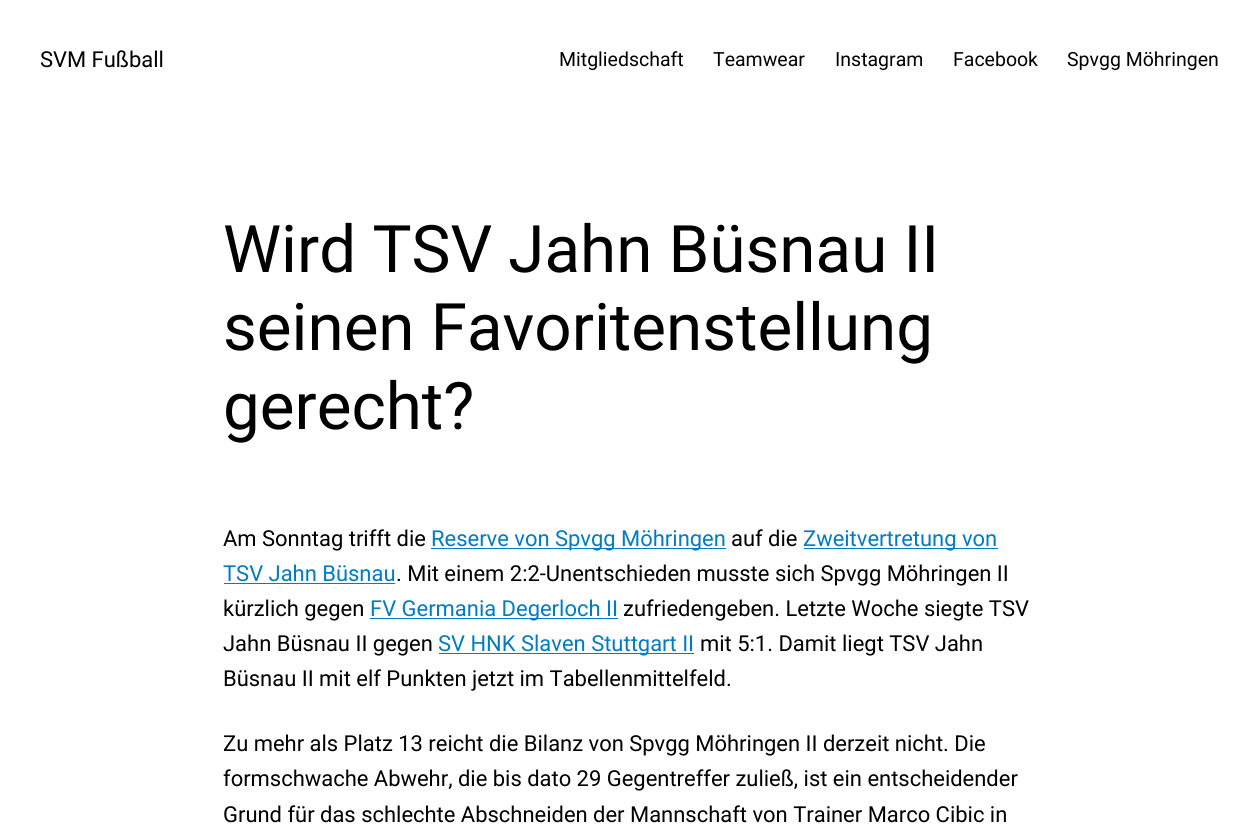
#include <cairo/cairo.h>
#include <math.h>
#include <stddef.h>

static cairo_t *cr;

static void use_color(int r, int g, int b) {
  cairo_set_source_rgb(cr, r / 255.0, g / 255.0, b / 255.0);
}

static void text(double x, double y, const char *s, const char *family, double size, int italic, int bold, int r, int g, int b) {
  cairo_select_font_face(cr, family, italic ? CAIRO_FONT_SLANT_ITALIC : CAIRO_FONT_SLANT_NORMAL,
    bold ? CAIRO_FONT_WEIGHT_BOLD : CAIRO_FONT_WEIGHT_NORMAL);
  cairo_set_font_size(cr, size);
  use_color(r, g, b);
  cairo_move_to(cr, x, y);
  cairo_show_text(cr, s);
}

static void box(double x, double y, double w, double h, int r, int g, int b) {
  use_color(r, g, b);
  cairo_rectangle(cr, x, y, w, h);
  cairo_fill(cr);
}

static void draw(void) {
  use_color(255, 255, 255);
  cairo_paint(cr);
  box(431, 548, 295, 1, 0, 124, 196);
  box(804, 548, 194, 1, 0, 124, 196);
  box(224, 583, 171, 1, 0, 124, 196);
  box(370, 618, 248, 1, 0, 124, 196);
  box(439, 653, 255, 1, 0, 124, 196);
  text(40, 67, "SVM Fußball", "Roboto", 21.95, 0, 0, 0, 0, 0);
  text(559, 66, "Mitgliedschaft", "Roboto", 19.5, 0, 0, 0, 0, 0);
  text(713, 66, "Teamwear", "Roboto", 19.5, 0, 0, 0, 0, 0);
  text(835, 66, "Instagram", "Roboto", 19.5, 0, 0, 0, 0, 0);
  text(953, 66, "Facebook", "Roboto", 19.5, 0, 0, 0, 0, 0);
  text(1067, 66, "Spvgg Möhringen", "Roboto", 19.5, 0, 0, 0, 0, 0);
  text(223, 272, "Wird TSV Jahn Büsnau II", "Roboto", 65.5, 0, 0, 0, 0, 0);
  text(223, 350, "seinen Favoritenstellung", "Roboto", 65.5, 0, 0, 0, 0, 0);
  text(223, 429, "gerecht?", "Roboto", 65.5, 0, 0, 0, 0, 0);
  text(223, 546, "Am Sonntag trifft die", "Roboto", 21.95, 0, 0, 0, 0, 0);
  text(431, 546, "Reserve von Spvgg Möhringen", "Roboto", 21.95, 0, 0, 0, 124, 196);
  text(731, 546, "auf die", "Roboto", 21.95, 0, 0, 0, 0, 0);
  text(803, 546, "Zweitvertretung von", "Roboto", 21.95, 0, 0, 0, 124, 196);
  text(223, 581, "TSV Jahn Büsnau", "Roboto", 21.95, 0, 0, 0, 124, 196);
  text(396, 581, ". Mit einem 2:2-Unentschieden musste sich Spvgg Möhringen II", "Roboto", 21.95, 0, 0, 0, 0, 0);
  text(223, 616, "kürzlich gegen", "Roboto", 21.95, 0, 0, 0, 0, 0);
  text(370, 616, "FV Germania Degerloch II", "Roboto", 21.95, 0, 0, 0, 124, 196);
  text(623, 616, "zufriedengeben. Letzte Woche siegte TSV", "Roboto", 21.95, 0, 0, 0, 0, 0);
  text(223, 651, "Jahn Büsnau II gegen", "Roboto", 21.95, 0, 0, 0, 0, 0);
  text(438, 651, "SV HNK Slaven Stuttgart II", "Roboto", 21.95, 0, 0, 0, 124, 196);
  text(700, 651, "mit 5:1. Damit liegt TSV Jahn", "Roboto", 21.95, 0, 0, 0, 0, 0);
  text(223, 686, "Büsnau II mit elf Punkten jetzt im Tabellenmittelfeld.", "Roboto", 21.95, 0, 0, 0, 0, 0);
  text(223, 751, "Zu mehr als Platz 13 reicht die Bilanz von Spvgg Möhringen II derzeit nicht. Die", "Roboto", 21.95, 0, 0, 0, 0, 0);
  text(223, 786, "formschwache Abwehr, die bis dato 29 Gegentreffer zuließ, ist ein entscheidender", "Roboto", 21.95, 0, 0, 0, 0, 0);
  text(223, 822, "Grund für das schlechte Abschneiden der Mannschaft von Trainer Marco Cibic in", "Roboto", 21.95, 0, 0, 0, 0, 0);
}

int main(void) {
  cairo_surface_t *surface = cairo_image_surface_create(CAIRO_FORMAT_RGB24, 1258, 829);
  cr = cairo_create(surface);
  cairo_font_options_t *options = cairo_font_options_create();
  cairo_font_options_set_hint_metrics(options, CAIRO_HINT_METRICS_OFF);
  cairo_font_options_set_hint_style(options, CAIRO_HINT_STYLE_NONE);
  cairo_set_font_options(cr, options);
  cairo_set_miter_limit(cr, 4);
  draw();
  cairo_surface_write_to_png(surface, "out.png");
  cairo_font_options_destroy(options);
  cairo_destroy(cr);
  cairo_surface_destroy(surface);
  return 0;
}
